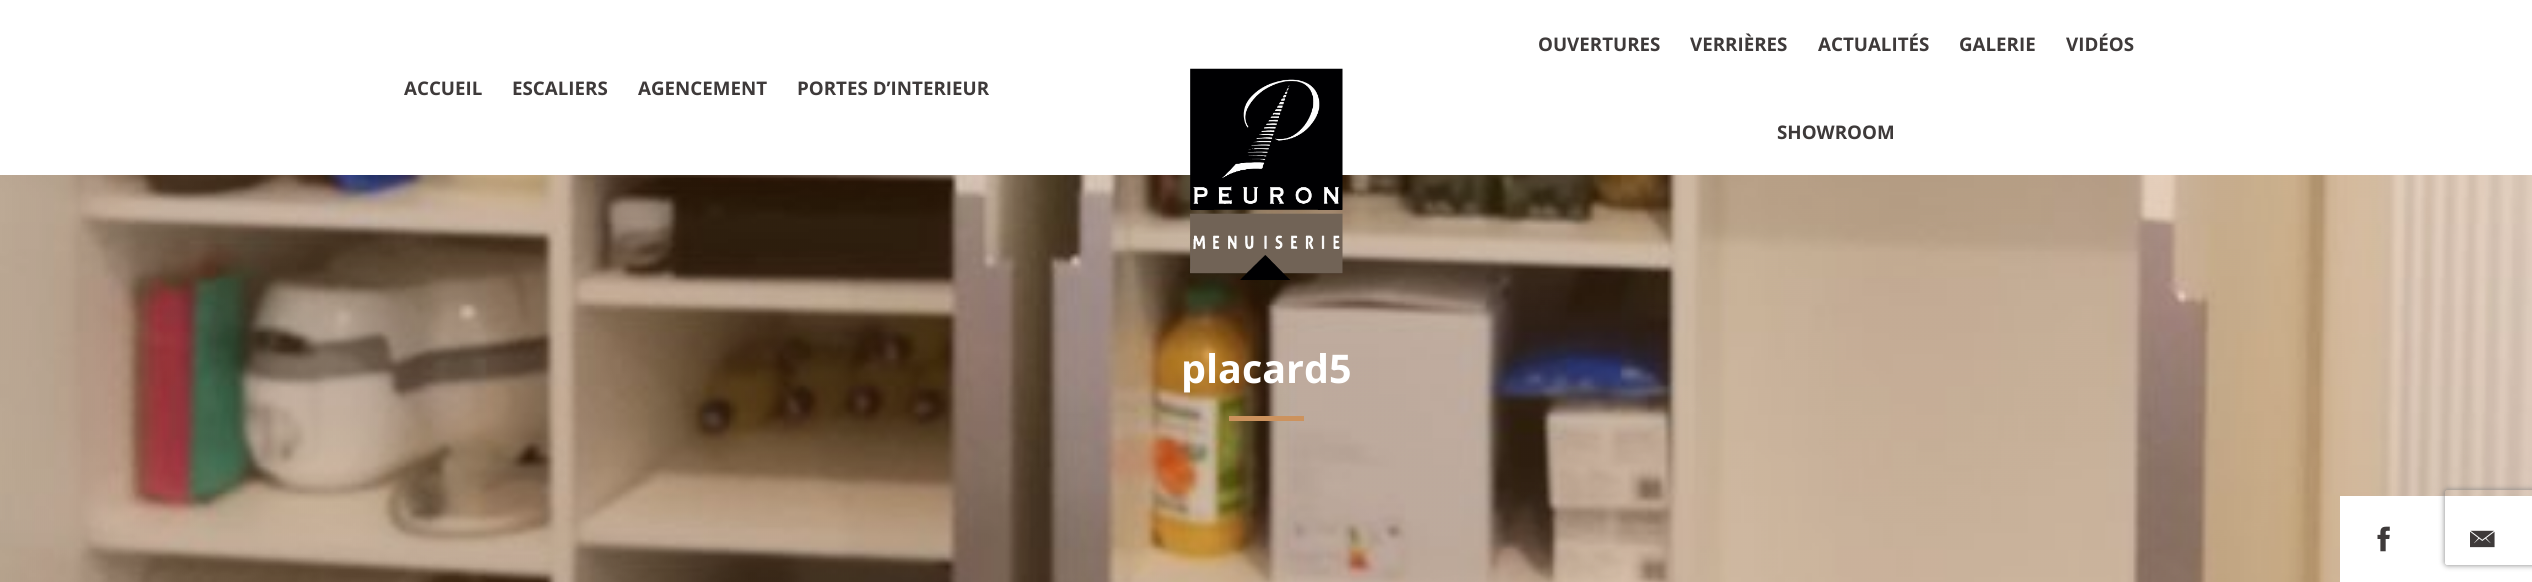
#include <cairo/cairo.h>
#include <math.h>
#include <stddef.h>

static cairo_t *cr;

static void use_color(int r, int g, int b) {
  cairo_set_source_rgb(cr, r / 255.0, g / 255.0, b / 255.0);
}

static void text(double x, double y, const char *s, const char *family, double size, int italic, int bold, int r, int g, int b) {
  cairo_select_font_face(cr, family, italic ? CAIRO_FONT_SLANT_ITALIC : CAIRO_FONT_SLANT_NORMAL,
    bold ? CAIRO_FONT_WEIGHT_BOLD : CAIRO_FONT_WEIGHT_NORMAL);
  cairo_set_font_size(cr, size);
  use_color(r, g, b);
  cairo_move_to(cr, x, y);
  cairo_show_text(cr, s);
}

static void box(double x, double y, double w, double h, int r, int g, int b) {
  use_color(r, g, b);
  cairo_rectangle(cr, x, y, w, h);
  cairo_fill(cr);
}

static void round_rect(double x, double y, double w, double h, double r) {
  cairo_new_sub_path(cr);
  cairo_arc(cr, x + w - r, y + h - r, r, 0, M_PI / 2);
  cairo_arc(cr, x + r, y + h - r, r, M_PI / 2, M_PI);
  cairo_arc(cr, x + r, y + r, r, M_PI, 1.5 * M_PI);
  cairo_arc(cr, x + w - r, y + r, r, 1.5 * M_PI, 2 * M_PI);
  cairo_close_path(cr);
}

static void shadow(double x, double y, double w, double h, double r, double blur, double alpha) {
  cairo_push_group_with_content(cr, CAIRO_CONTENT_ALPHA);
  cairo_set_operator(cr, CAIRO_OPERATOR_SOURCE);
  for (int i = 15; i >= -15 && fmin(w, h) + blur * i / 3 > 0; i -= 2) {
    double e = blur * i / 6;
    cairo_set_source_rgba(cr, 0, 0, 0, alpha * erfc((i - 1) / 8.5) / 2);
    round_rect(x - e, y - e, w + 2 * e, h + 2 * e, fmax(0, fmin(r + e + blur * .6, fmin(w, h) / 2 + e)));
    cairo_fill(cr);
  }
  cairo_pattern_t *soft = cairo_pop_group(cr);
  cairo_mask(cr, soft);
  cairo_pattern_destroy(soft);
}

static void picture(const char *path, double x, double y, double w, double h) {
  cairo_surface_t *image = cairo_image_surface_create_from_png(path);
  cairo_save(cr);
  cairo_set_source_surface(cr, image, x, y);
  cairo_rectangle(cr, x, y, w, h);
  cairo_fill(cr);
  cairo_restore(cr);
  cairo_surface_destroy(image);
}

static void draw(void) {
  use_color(255, 255, 255);
  cairo_paint(cr);
  picture("img_02.png", 0, 175, 2532, 407);
  picture("img_01.png", 1190, 68, 153, 212);
  box(1229, 416, 75, 5, 204, 146, 93);
  box(2340, 496, 192, 86, 255, 255, 255);
  picture("img_03.png", 2377, 526, 13, 26);
  picture("img_04.png", 2470, 530, 25, 18);
  cairo_save(cr);
  cairo_set_fill_rule(cr, CAIRO_FILL_RULE_EVEN_ODD);
  cairo_new_path(cr);
  cairo_move_to(cr, 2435, 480);
  cairo_line_to(cr, 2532, 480);
  cairo_line_to(cr, 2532, 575);
  cairo_line_to(cr, 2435, 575);
  cairo_close_path(cr);
  cairo_move_to(cr, 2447.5, 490);
  cairo_line_to(cr, 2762.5, 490);
  cairo_curve_to(cr, 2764, 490, 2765, 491, 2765, 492.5);
  cairo_line_to(cr, 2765, 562.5);
  cairo_curve_to(cr, 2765, 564, 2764, 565, 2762.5, 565);
  cairo_line_to(cr, 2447.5, 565);
  cairo_curve_to(cr, 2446, 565, 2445, 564, 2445, 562.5);
  cairo_line_to(cr, 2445, 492.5);
  cairo_curve_to(cr, 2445, 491, 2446, 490, 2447.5, 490);
  cairo_close_path(cr);
  cairo_clip(cr);
  use_color(128, 128, 128);
  shadow(2445, 490, 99, 75, 2.5, 3, 1);
  cairo_restore(cr);
  text(404, 95, "ACCUEIL", "Open Sans", 18.75, 0, 1, 62, 58, 58);
  text(512, 95, "ESCALIERS", "Open Sans", 18.75, 0, 1, 62, 58, 58);
  text(638, 95, "AGENCEMENT", "Open Sans", 18.75, 0, 1, 62, 58, 58);
  text(797, 95, "PORTES D’INTERIEUR", "Open Sans", 18.75, 0, 1, 62, 58, 58);
  text(1538, 51, "OUVERTURES", "Open Sans", 18.75, 0, 1, 62, 58, 58);
  text(1690, 51, "VERRIÈRES", "Open Sans", 18.75, 0, 1, 62, 58, 58);
  text(1818, 51, "ACTUALITÉS", "Open Sans", 18.75, 0, 1, 62, 58, 58);
  text(1959, 51, "GALERIE", "Open Sans", 18.75, 0, 1, 62, 58, 58);
  text(2066, 51, "VIDÉOS", "Open Sans", 18.75, 0, 1, 62, 58, 58);
  text(1777, 139, "SHOWROOM", "Open Sans", 18.75, 0, 1, 62, 58, 58);
  text(1181, 383, "placard5", "Open Sans", 39.5, 0, 1, 255, 255, 255);
}

int main(void) {
  cairo_surface_t *surface = cairo_image_surface_create(CAIRO_FORMAT_RGB24, 2532, 582);
  cr = cairo_create(surface);
  cairo_font_options_t *options = cairo_font_options_create();
  cairo_font_options_set_hint_metrics(options, CAIRO_HINT_METRICS_OFF);
  cairo_font_options_set_hint_style(options, CAIRO_HINT_STYLE_NONE);
  cairo_set_font_options(cr, options);
  cairo_set_miter_limit(cr, 4);
  draw();
  cairo_surface_write_to_png(surface, "out.png");
  cairo_font_options_destroy(options);
  cairo_destroy(cr);
  cairo_surface_destroy(surface);
  return 0;
}
